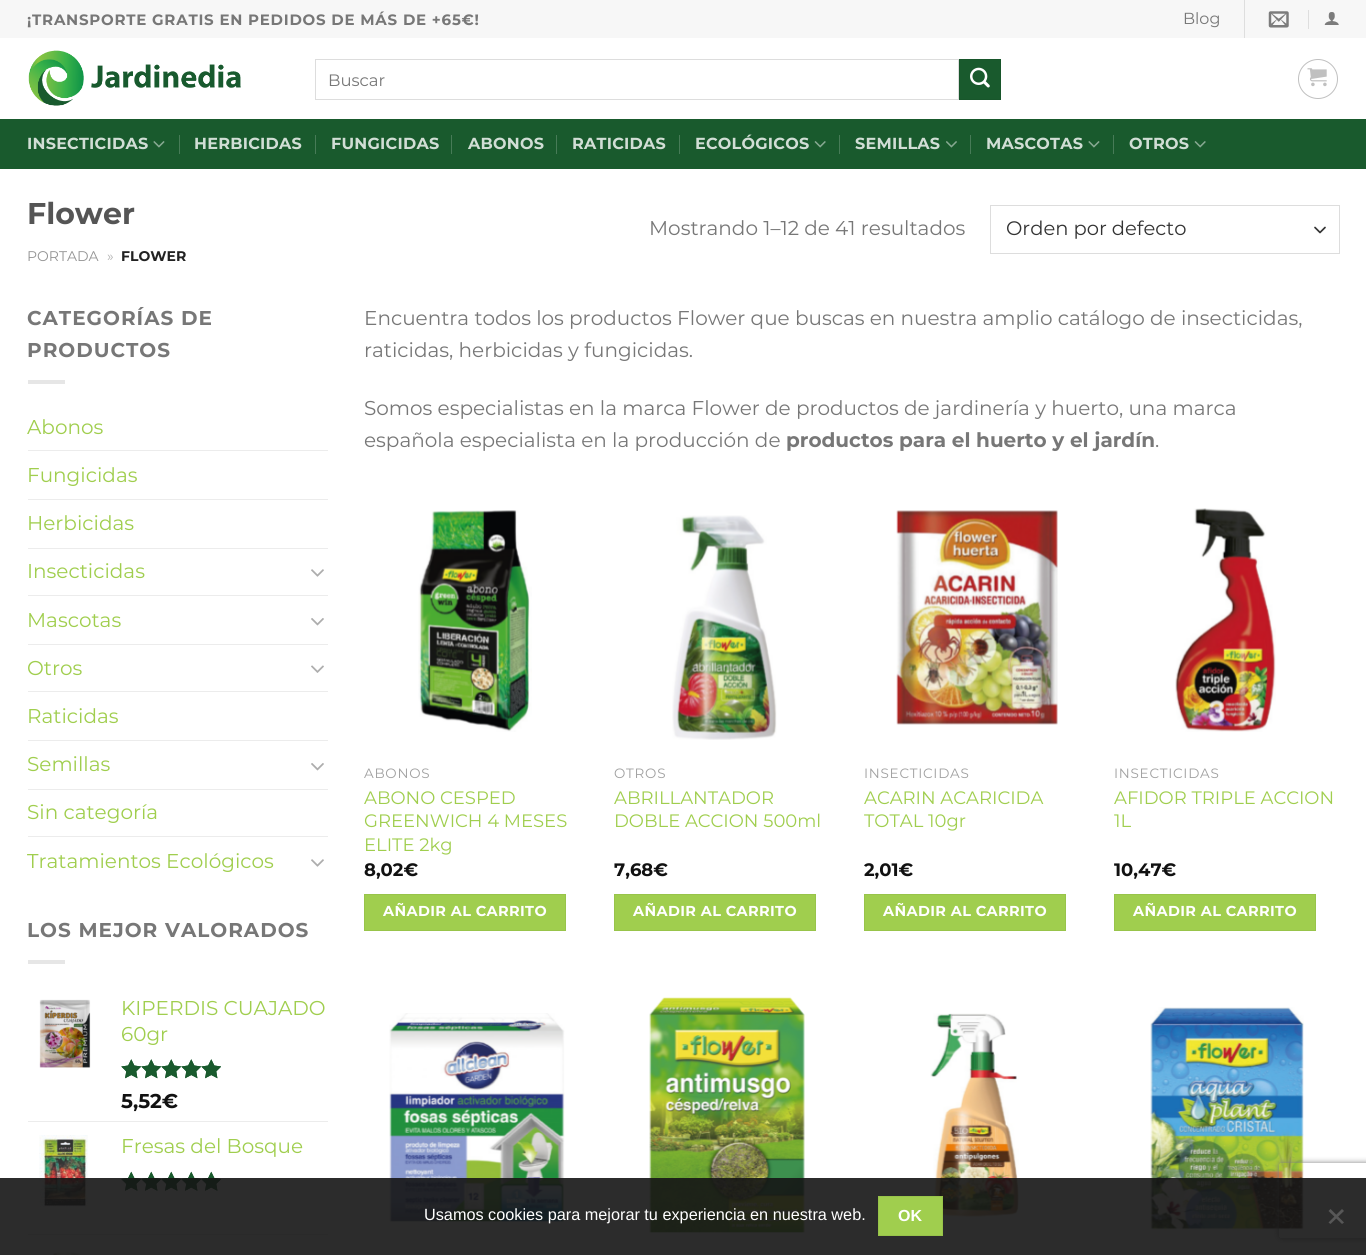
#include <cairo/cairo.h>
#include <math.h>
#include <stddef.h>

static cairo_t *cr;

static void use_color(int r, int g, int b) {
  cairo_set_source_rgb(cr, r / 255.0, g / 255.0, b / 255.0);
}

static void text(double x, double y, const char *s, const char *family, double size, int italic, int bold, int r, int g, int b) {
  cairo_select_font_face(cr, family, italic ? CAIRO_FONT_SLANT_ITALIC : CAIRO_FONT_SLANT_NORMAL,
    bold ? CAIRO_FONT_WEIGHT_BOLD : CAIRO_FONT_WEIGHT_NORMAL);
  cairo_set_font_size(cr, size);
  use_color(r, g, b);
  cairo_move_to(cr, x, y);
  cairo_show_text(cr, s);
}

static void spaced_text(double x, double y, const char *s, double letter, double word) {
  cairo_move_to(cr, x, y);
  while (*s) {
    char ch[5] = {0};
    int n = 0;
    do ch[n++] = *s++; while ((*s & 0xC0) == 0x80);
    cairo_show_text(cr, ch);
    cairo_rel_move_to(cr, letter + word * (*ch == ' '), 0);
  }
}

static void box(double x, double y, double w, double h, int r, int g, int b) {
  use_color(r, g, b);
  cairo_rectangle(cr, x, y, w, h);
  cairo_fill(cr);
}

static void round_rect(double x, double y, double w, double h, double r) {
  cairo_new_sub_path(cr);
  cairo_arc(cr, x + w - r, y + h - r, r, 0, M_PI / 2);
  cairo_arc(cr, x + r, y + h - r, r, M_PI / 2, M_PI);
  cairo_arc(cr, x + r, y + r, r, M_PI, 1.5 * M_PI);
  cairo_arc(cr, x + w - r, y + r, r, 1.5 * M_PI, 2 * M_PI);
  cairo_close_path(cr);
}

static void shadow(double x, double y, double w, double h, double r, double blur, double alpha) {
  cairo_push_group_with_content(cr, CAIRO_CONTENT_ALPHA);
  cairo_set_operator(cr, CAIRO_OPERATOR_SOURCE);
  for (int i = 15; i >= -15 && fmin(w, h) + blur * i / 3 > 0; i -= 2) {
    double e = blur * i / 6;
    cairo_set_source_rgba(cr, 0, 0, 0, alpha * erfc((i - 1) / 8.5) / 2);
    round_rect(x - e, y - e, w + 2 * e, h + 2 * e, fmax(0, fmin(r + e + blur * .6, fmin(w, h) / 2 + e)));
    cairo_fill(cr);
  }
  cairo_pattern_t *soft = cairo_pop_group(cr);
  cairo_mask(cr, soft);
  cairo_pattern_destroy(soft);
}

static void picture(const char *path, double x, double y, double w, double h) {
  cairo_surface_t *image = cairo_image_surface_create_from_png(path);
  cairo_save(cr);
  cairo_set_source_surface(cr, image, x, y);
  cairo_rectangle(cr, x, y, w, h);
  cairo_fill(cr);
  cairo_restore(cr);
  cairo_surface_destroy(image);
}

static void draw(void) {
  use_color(255, 255, 255);
  cairo_paint(cr);
  box(0, 0, 1366, 38, 247, 247, 247);
  box(1244, 0, 1, 38, 222, 222, 222);
  picture("img_01.png", 1268, 11, 21, 17);
  box(1308, 10, 1, 19, 222, 222, 222);
  picture("img_02.png", 1324, 12, 15, 13);
  picture("img_03.png", 28, 50, 213, 56);
  cairo_rectangle(cr, 315.5, 59.5, 643, 40);
  use_color(221, 221, 221);
  cairo_set_line_width(cr, 1);
  cairo_stroke(cr);
  use_color(25, 90, 45);
  cairo_rectangle(cr, 959.5, 59.5, 41, 40);
  cairo_fill_preserve(cr);
  use_color(24, 86, 43);
  cairo_stroke(cr);
  picture("img_04.png", 970, 67, 20, 21);
  cairo_arc(cr, 1318, 79, 19.5, 0, 2 * M_PI);
  use_color(192, 192, 192);
  cairo_stroke(cr);
  picture("img_05.png", 1307, 68, 20, 19);
  box(0, 119, 1366, 50, 25, 90, 45);
  picture("img_06.png", 153, 141, 12, 7);
  box(179, 135, 1, 19, 71, 123, 87);
  box(315, 135, 1, 19, 71, 123, 87);
  box(451, 135, 1, 19, 71, 123, 87);
  box(556, 135, 1, 19, 71, 123, 87);
  box(679, 135, 1, 19, 71, 123, 87);
  picture("img_07.png", 814, 141, 12, 7);
  box(839, 135, 1, 19, 71, 123, 87);
  picture("img_08.png", 946, 141, 11, 7);
  box(970, 135, 1, 19, 71, 123, 87);
  picture("img_06.png", 1088, 141, 12, 7);
  box(1113, 135, 1, 19, 71, 123, 87);
  picture("img_07.png", 1194, 141, 12, 7);
  cairo_new_path(cr);
  cairo_move_to(cr, 1315, 227.5);
  cairo_line_to(cr, 1320, 232.5);
  cairo_line_to(cr, 1325, 227.5);
  use_color(51, 51, 51);
  cairo_set_line_width(cr, 1.7);
  cairo_set_line_cap(cr, CAIRO_LINE_CAP_ROUND);
  cairo_set_line_join(cr, CAIRO_LINE_JOIN_ROUND);
  cairo_stroke(cr);
  cairo_rectangle(cr, 990.5, 205.5, 349, 48);
  use_color(221, 221, 221);
  cairo_set_line_width(cr, 1);
  cairo_set_line_cap(cr, CAIRO_LINE_CAP_BUTT);
  cairo_set_line_join(cr, CAIRO_LINE_JOIN_MITER);
  cairo_stroke(cr);
  box(28, 380, 37, 4, 230, 230, 230);
  box(28, 450, 300, 1, 236, 236, 236);
  box(28, 499, 300, 1, 236, 236, 236);
  box(28, 548, 300, 1, 236, 236, 236);
  picture("img_09.png", 311, 569, 13, 8);
  box(28, 595, 300, 1, 236, 236, 236);
  picture("img_10.png", 311, 618, 13, 8);
  box(28, 644, 300, 1, 236, 236, 236);
  picture("img_11.png", 311, 665, 13, 8);
  box(28, 691, 300, 1, 236, 236, 236);
  box(28, 740, 300, 1, 236, 236, 236);
  picture("img_10.png", 311, 763, 13, 8);
  box(28, 789, 300, 1, 236, 236, 236);
  box(28, 836, 300, 1, 236, 236, 236);
  picture("img_09.png", 311, 859, 13, 8);
  box(28, 960, 37, 4, 230, 230, 230);
  picture("img_12.png", 39, 999, 52, 69);
  picture("img_13.png", 121, 1059, 100, 20);
  picture("img_14.png", 121, 1059, 100, 20);
  box(28, 1121, 300, 1, 236, 236, 236);
  picture("img_15.png", 39, 1135, 49, 73);
  picture("img_16.png", 121, 1171, 100, 20);
  picture("img_17.png", 121, 1171, 100, 20);
  box(28, 1234, 300, 1, 236, 236, 236);
  picture("img_18.png", 53, 1251, 28, 4);
  picture("img_19.png", 418, 510, 114, 222);
  use_color(160, 206, 78);
  cairo_rectangle(cr, 364.5, 894.5, 201, 36);
  cairo_fill_preserve(cr);
  use_color(152, 196, 74);
  cairo_stroke(cr);
  picture("img_20.png", 672, 515, 105, 225);
  use_color(160, 206, 78);
  cairo_rectangle(cr, 614.5, 894.5, 201, 36);
  cairo_fill_preserve(cr);
  use_color(152, 196, 74);
  cairo_stroke(cr);
  picture("img_21.png", 896, 510, 162, 215);
  use_color(160, 206, 78);
  cairo_rectangle(cr, 864.5, 894.5, 201, 36);
  cairo_fill_preserve(cr);
  use_color(152, 196, 74);
  cairo_stroke(cr);
  picture("img_22.png", 1175, 508, 101, 224);
  use_color(160, 206, 78);
  cairo_rectangle(cr, 1114.5, 894.5, 201, 36);
  cairo_fill_preserve(cr);
  use_color(152, 196, 74);
  cairo_stroke(cr);
  picture("img_23.png", 389, 1013, 176, 211);
  picture("img_24.png", 649, 997, 156, 236);
  picture("img_25.png", 930, 1013, 89, 204);
  picture("img_26.png", 1150, 1007, 154, 225);
  cairo_save(cr);
  cairo_set_fill_rule(cr, CAIRO_FILL_RULE_EVEN_ODD);
  cairo_new_path(cr);
  cairo_move_to(cr, 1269, 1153);
  cairo_line_to(cr, 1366, 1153);
  cairo_line_to(cr, 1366, 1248);
  cairo_line_to(cr, 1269, 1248);
  cairo_close_path(cr);
  cairo_move_to(cr, 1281.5, 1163);
  cairo_line_to(cr, 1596.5, 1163);
  cairo_curve_to(cr, 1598, 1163, 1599, 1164, 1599, 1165.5);
  cairo_line_to(cr, 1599, 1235.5);
  cairo_curve_to(cr, 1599, 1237, 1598, 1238, 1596.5, 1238);
  cairo_line_to(cr, 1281.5, 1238);
  cairo_curve_to(cr, 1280, 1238, 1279, 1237, 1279, 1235.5);
  cairo_line_to(cr, 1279, 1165.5);
  cairo_curve_to(cr, 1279, 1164, 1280, 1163, 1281.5, 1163);
  cairo_close_path(cr);
  cairo_clip(cr);
  use_color(128, 128, 128);
  shadow(1279, 1163, 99, 75, 2.5, 3, 1);
  cairo_restore(cr);
  cairo_set_source_rgba(cr, 0.086, 0.086, 0.086, 0.9);
  cairo_rectangle(cr, 0, 1178, 1366, 77);
  cairo_fill(cr);
  use_color(160, 206, 78);
  cairo_rectangle(cr, 878.5, 1196.5, 64, 39);
  cairo_fill_preserve(cr);
  use_color(152, 196, 74);
  cairo_stroke(cr);
  use_color(87, 87, 87);
  cairo_new_path(cr);
  cairo_move_to(cr, 1342, 1209);
  cairo_line_to(cr, 1344, 1211);
  cairo_line_to(cr, 1330.5, 1224);
  cairo_line_to(cr, 1328.5, 1222.5);
  cairo_close_path(cr);
  cairo_fill(cr);
  cairo_new_path(cr);
  cairo_move_to(cr, 1328.5, 1211);
  cairo_line_to(cr, 1330.5, 1209);
  cairo_line_to(cr, 1344, 1222.5);
  cairo_line_to(cr, 1342, 1224);
  cairo_close_path(cr);
  cairo_fill(cr);
  cairo_select_font_face(cr, "Montserrat", CAIRO_FONT_SLANT_NORMAL, CAIRO_FONT_WEIGHT_BOLD);
  cairo_set_font_size(cr, 15);
  use_color(119, 119, 119);
  spaced_text(27, 25, "¡TRANSPORTE GRATIS EN PEDIDOS DE MÁS DE +65€!", 0.75, 0);
  text(1183, 24, "Blog", "Montserrat", 16, 0, 0, 119, 119, 119);
  text(328, 86, "Buscar", "Montserrat", 16.5, 0, 0, 119, 119, 119);
  cairo_select_font_face(cr, "Montserrat", CAIRO_FONT_SLANT_NORMAL, CAIRO_FONT_WEIGHT_BOLD);
  cairo_set_font_size(cr, 16);
  use_color(209, 222, 213);
  spaced_text(27, 149, "INSECTICIDAS", 0.25, 0);
  spaced_text(194, 149, "HERBICIDAS", 0.25, 0);
  spaced_text(331, 149, "FUNGICIDAS", 0.25, 0);
  spaced_text(468, 149, "ABONOS", 0.25, 0);
  spaced_text(572, 149, "RATICIDAS", 0.25, 0);
  spaced_text(695, 149, "ECOLÓGICOS", 0.25, 0);
  spaced_text(855, 149, "SEMILLAS", 0.25, 0);
  spaced_text(986, 149, "MASCOTAS", 0.25, 0);
  spaced_text(1129, 149, "OTROS", 0.25, 0);
  text(27, 224, "Flower", "Montserrat", 30, 0, 1, 85, 85, 85);
  text(27, 261, "PORTADA", "Montserrat", 14, 0, 0, 148, 148, 148);
  text(107, 261, "»", "Montserrat", 14, 0, 0, 178, 178, 178);
  text(121, 261, "FLOWER", "Montserrat", 14, 0, 1, 34, 34, 34);
  text(649, 235, "Mostrando 1–12 de 41 resultados", "Montserrat", 20, 0, 0, 119, 119, 119);
  text(1006, 235, "Orden por defecto", "Montserrat", 19.5, 0, 0, 51, 51, 51);
  cairo_select_font_face(cr, "Montserrat", CAIRO_FONT_SLANT_NORMAL, CAIRO_FONT_WEIGHT_BOLD);
  cairo_set_font_size(cr, 20);
  use_color(119, 119, 119);
  spaced_text(27, 325, "CATEGORÍAS DE", 1, 0);
  spaced_text(27, 357, "PRODUCTOS", 1, 0);
  text(27, 434, "Abonos", "Montserrat", 20, 0, 0, 160, 206, 78);
  text(27, 482, "Fungicidas", "Montserrat", 20, 0, 0, 160, 206, 78);
  text(27, 530, "Herbicidas", "Montserrat", 20, 0, 0, 160, 206, 78);
  text(27, 578, "Insecticidas", "Montserrat", 20, 0, 0, 160, 206, 78);
  text(27, 627, "Mascotas", "Montserrat", 20, 0, 0, 160, 206, 78);
  text(27, 675, "Otros", "Montserrat", 20, 0, 0, 160, 206, 78);
  text(27, 723, "Raticidas", "Montserrat", 20, 0, 0, 160, 206, 78);
  text(27, 771, "Semillas", "Montserrat", 20, 0, 0, 160, 206, 78);
  text(27, 819, "Sin categoría", "Montserrat", 20, 0, 0, 160, 206, 78);
  text(27, 868, "Tratamientos Ecológicos", "Montserrat", 20, 0, 0, 160, 206, 78);
  cairo_select_font_face(cr, "Montserrat", CAIRO_FONT_SLANT_NORMAL, CAIRO_FONT_WEIGHT_BOLD);
  use_color(119, 119, 119);
  spaced_text(27, 937, "LOS MEJOR VALORADOS", 1, 0);
  text(121, 1015, "KIPERDIS CUAJADO", "Montserrat", 20, 0, 0, 160, 206, 78);
  text(121, 1041, "60gr", "Montserrat", 20, 0, 0, 160, 206, 78);
  text(121, 1108, "5,52€", "Montserrat", 20, 0, 1, 17, 17, 17);
  text(121, 1153, "Fresas del Bosque", "Montserrat", 20, 0, 0, 160, 206, 78);
  text(364, 325, "Encuentra todos los productos Flower que buscas en nuestra amplio catálogo de insecticidas,", "Montserrat", 20, 0, 0, 119, 119, 119);
  text(364, 357, "raticidas, herbicidas y fungicidas.", "Montserrat", 20, 0, 0, 119, 119, 119);
  text(364, 415, "Somos especialistas en la marca Flower de productos de jardinería y huerto, una marca", "Montserrat", 20, 0, 0, 119, 119, 119);
  text(364, 447, "española especialista en la producción de", "Montserrat", 20, 0, 0, 119, 119, 119);
  text(786, 447, "productos para el huerto y el jardín", "Montserrat", 20, 0, 1, 119, 119, 119);
  text(1155, 447, ".", "Montserrat", 20, 0, 0, 119, 119, 119);
  cairo_set_font_size(cr, 13.5);
  use_color(160, 160, 160);
  spaced_text(364, 778, "ABONOS", 0.75, 0);
  text(364, 804, "ABONO CESPED", "Montserrat", 18, 0, 0, 160, 206, 78);
  text(364, 827, "GREENWICH 4 MESES", "Montserrat", 18, 0, 0, 160, 206, 78);
  text(364, 851, "ELITE 2kg", "Montserrat", 18, 0, 0, 160, 206, 78);
  text(364, 876, "8,02€", "Montserrat", 18, 0, 1, 17, 17, 17);
  cairo_set_font_size(cr, 14.4);
  use_color(255, 255, 255);
  spaced_text(383, 916, "AÑADIR AL CARRITO", 0.4, 0);
  cairo_select_font_face(cr, "Montserrat", CAIRO_FONT_SLANT_NORMAL, CAIRO_FONT_WEIGHT_NORMAL);
  cairo_set_font_size(cr, 13.5);
  use_color(160, 160, 160);
  spaced_text(614, 778, "OTROS", 0.75, 0);
  text(614, 804, "ABRILLANTADOR", "Montserrat", 18, 0, 0, 160, 206, 78);
  text(614, 827, "DOBLE ACCION 500ml", "Montserrat", 18, 0, 0, 160, 206, 78);
  text(614, 876, "7,68€", "Montserrat", 18, 0, 1, 17, 17, 17);
  cairo_set_font_size(cr, 14.4);
  use_color(255, 255, 255);
  spaced_text(633, 916, "AÑADIR AL CARRITO", 0.4, 0);
  cairo_select_font_face(cr, "Montserrat", CAIRO_FONT_SLANT_NORMAL, CAIRO_FONT_WEIGHT_NORMAL);
  cairo_set_font_size(cr, 13.5);
  use_color(160, 160, 160);
  spaced_text(864, 778, "INSECTICIDAS", 0.75, 0);
  text(864, 804, "ACARIN ACARICIDA", "Montserrat", 18, 0, 0, 160, 206, 78);
  text(864, 827, "TOTAL 10gr", "Montserrat", 18, 0, 0, 160, 206, 78);
  text(864, 876, "2,01€", "Montserrat", 18, 0, 1, 17, 17, 17);
  cairo_set_font_size(cr, 14.4);
  use_color(255, 255, 255);
  spaced_text(883, 916, "AÑADIR AL CARRITO", 0.4, 0);
  cairo_select_font_face(cr, "Montserrat", CAIRO_FONT_SLANT_NORMAL, CAIRO_FONT_WEIGHT_NORMAL);
  cairo_set_font_size(cr, 13.5);
  use_color(160, 160, 160);
  spaced_text(1114, 778, "INSECTICIDAS", 0.75, 0);
  text(1114, 804, "AFIDOR TRIPLE ACCION", "Montserrat", 18, 0, 0, 160, 206, 78);
  text(1114, 827, "1L", "Montserrat", 18, 0, 0, 160, 206, 78);
  text(1114, 876, "10,47€", "Montserrat", 18, 0, 1, 17, 17, 17);
  cairo_set_font_size(cr, 14.4);
  use_color(255, 255, 255);
  spaced_text(1133, 916, "AÑADIR AL CARRITO", 0.4, 0);
  text(424, 1220, "Usamos cookies para mejorar tu experiencia en nuestra web.", "Liberation Sans", 16.25, 0, 0, 255, 255, 255);
  text(898, 1221, "OK", "Liberation Sans", 16, 0, 1, 255, 255, 255);
}

int main(void) {
  cairo_surface_t *surface = cairo_image_surface_create(CAIRO_FORMAT_RGB24, 1366, 1255);
  cr = cairo_create(surface);
  cairo_font_options_t *options = cairo_font_options_create();
  cairo_font_options_set_hint_metrics(options, CAIRO_HINT_METRICS_OFF);
  cairo_font_options_set_hint_style(options, CAIRO_HINT_STYLE_NONE);
  cairo_set_font_options(cr, options);
  cairo_set_miter_limit(cr, 4);
  draw();
  cairo_surface_write_to_png(surface, "out.png");
  cairo_font_options_destroy(options);
  cairo_destroy(cr);
  cairo_surface_destroy(surface);
  return 0;
}
